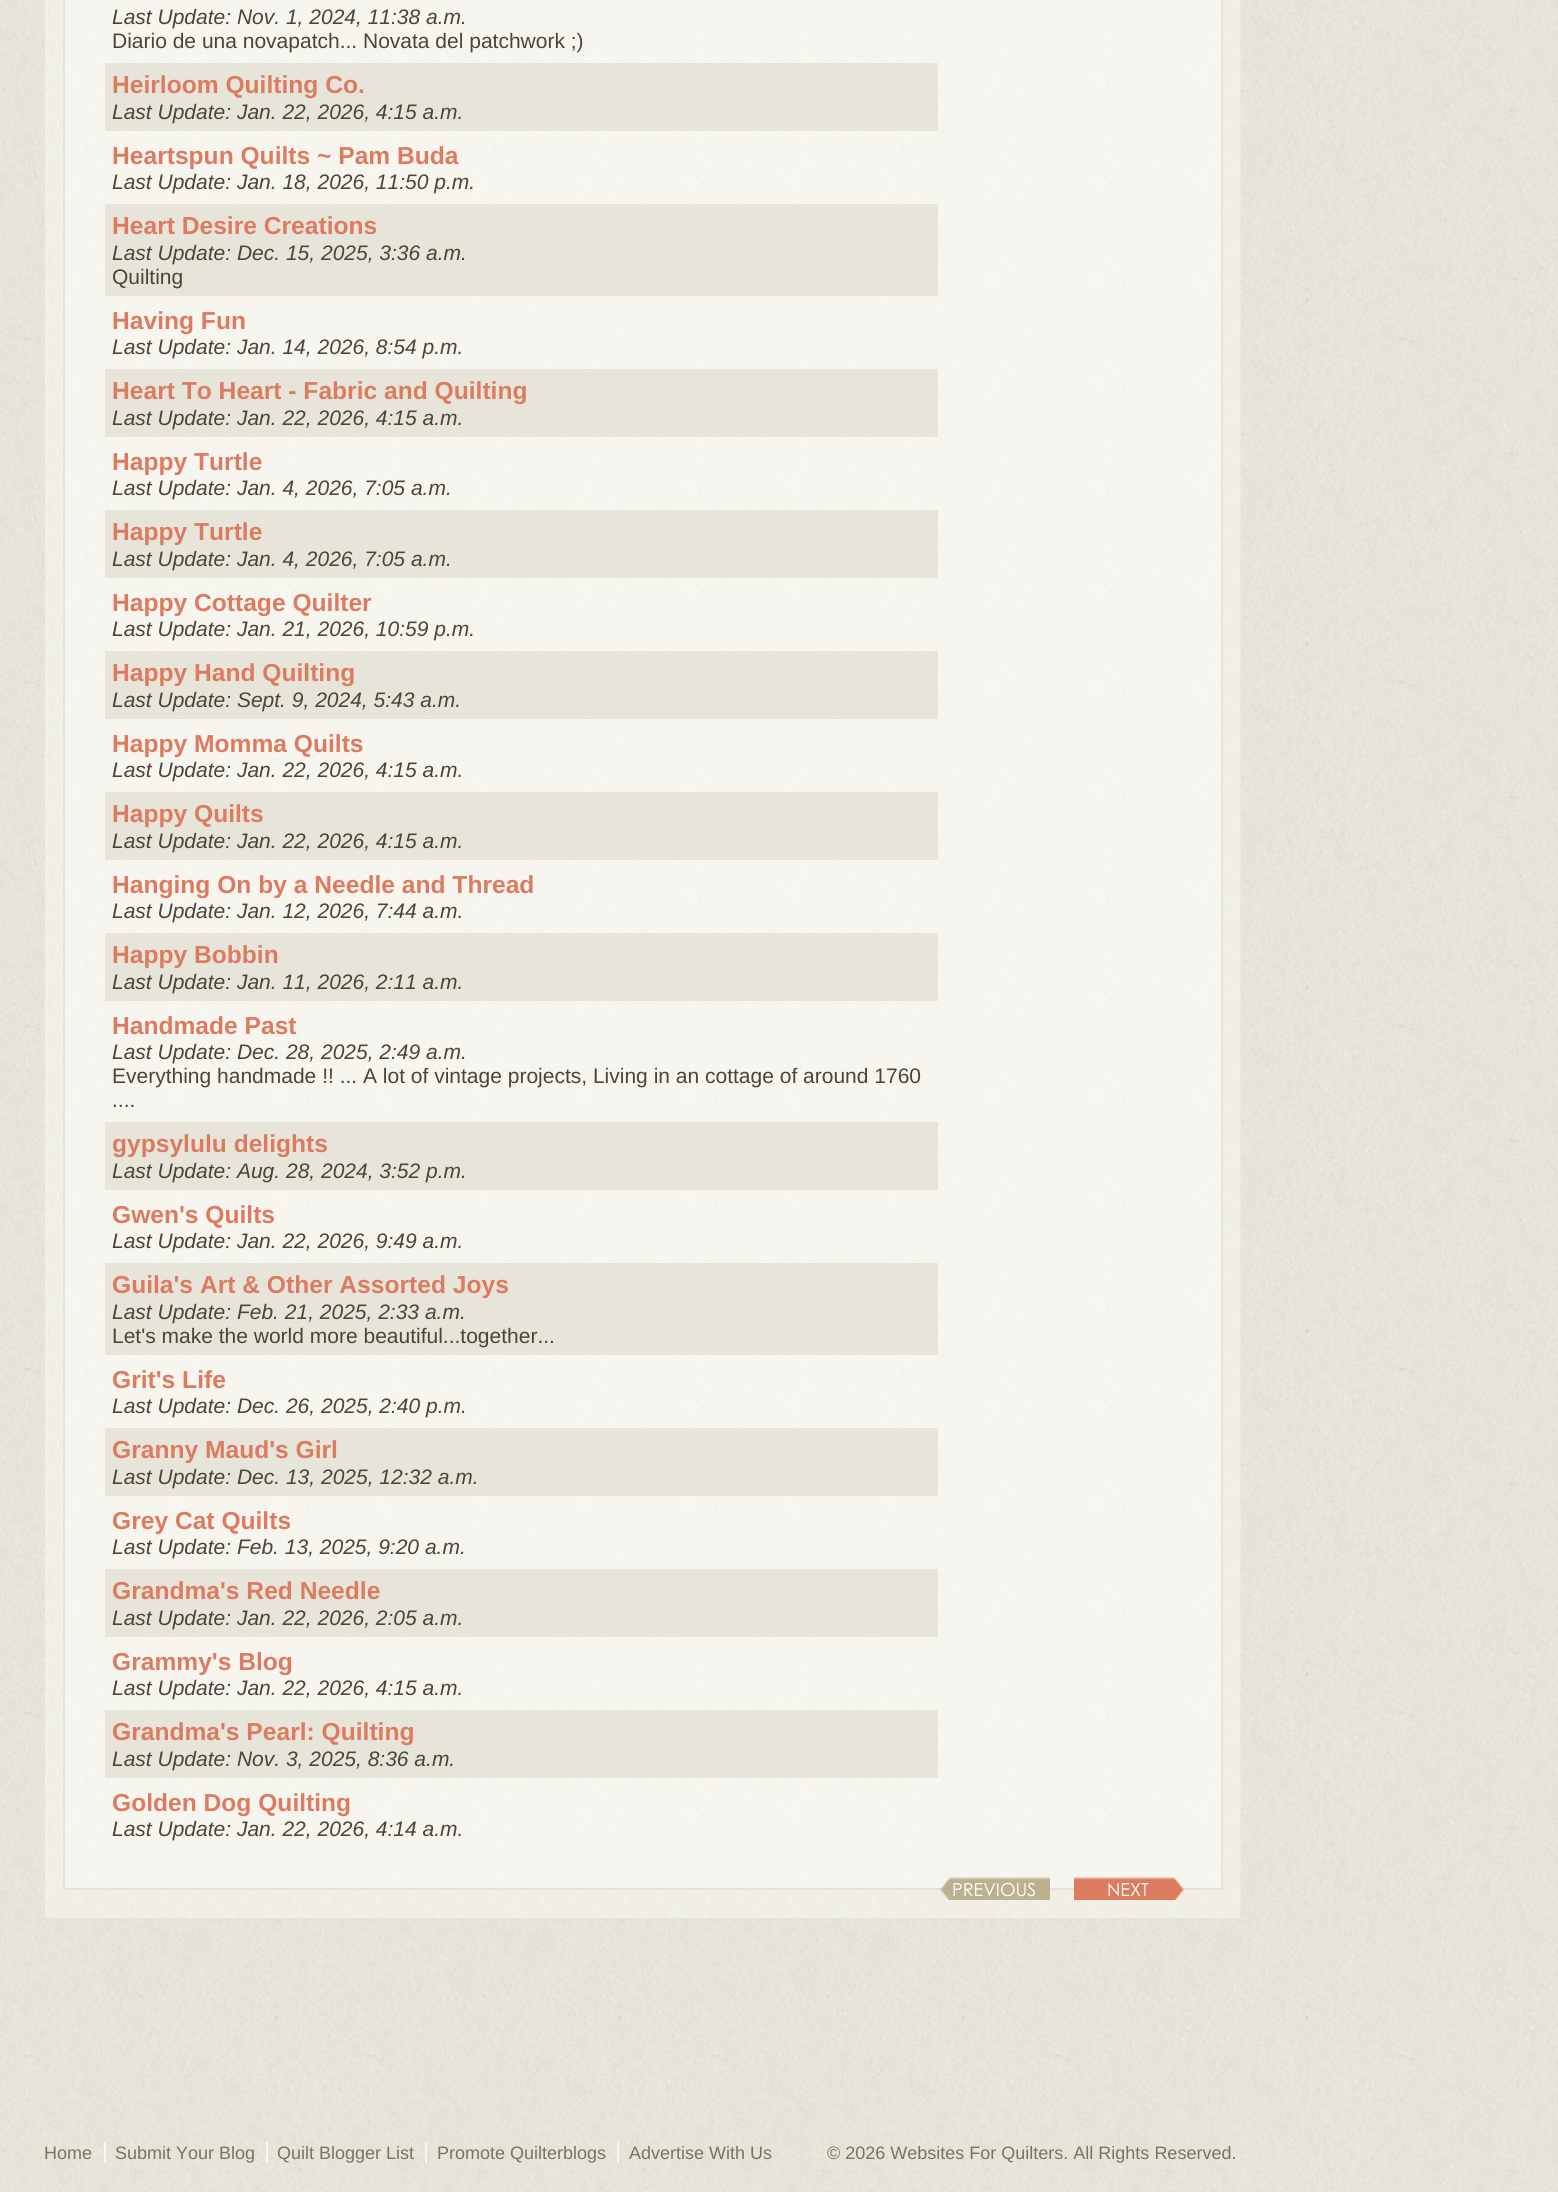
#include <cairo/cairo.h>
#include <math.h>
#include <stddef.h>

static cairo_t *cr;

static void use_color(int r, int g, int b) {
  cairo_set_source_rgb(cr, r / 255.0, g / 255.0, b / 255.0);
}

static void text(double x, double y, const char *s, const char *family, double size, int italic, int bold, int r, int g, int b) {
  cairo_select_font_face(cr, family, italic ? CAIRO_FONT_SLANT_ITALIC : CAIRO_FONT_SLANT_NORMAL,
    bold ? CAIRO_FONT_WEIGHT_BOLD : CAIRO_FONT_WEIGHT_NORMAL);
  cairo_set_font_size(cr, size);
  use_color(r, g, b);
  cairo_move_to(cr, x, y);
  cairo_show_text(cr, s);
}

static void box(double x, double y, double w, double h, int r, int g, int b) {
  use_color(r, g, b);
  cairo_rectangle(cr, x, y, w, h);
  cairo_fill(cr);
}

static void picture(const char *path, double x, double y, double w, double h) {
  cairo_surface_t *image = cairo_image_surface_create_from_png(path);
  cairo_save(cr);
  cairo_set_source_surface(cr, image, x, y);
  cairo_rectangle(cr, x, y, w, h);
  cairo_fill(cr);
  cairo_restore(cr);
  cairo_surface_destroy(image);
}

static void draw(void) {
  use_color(255, 255, 255);
  cairo_paint(cr);
  picture("img_01.png", 0, 0, 1558, 2192);
  picture("img_02.png", 45, 0, 1196, 1918);
  picture("img_03.png", 65, 0, 1156, 1888);
  cairo_rectangle(cr, 64, -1, 1158, 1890);
  use_color(229, 227, 215);
  cairo_stroke(cr);
  box(105, 63, 833, 68, 231, 229, 217);
  box(105, 204, 833, 92, 231, 229, 217);
  box(105, 369, 833, 68, 231, 229, 217);
  box(105, 510, 833, 68, 231, 229, 217);
  box(105, 651, 833, 68, 231, 229, 217);
  box(105, 792, 833, 68, 231, 229, 217);
  box(105, 933, 833, 68, 231, 229, 217);
  box(105, 1122, 833, 68, 231, 229, 217);
  box(105, 1263, 833, 92, 231, 229, 217);
  box(105, 1428, 833, 68, 231, 229, 217);
  box(105, 1569, 833, 68, 231, 229, 217);
  box(105, 1710, 833, 68, 231, 229, 217);
  picture("img_04.png", 940, 1877, 110, 23);
  picture("img_05.png", 1074, 1877, 110, 23);
  box(104, 2142, 2, 21, 247, 247, 240);
  box(266, 2142, 2, 21, 247, 247, 240);
  box(425, 2142, 2, 21, 247, 247, 240);
  box(617, 2142, 2, 21, 247, 247, 240);
  text(112, 24, "Last Update: Nov. 1, 2024, 11:38 a.m.", "Liberation Sans", 21, 1, 0, 75, 69, 56);
  text(112, 48, "Diario de una novapatch... Novata del patchwork ;)", "Liberation Sans", 21, 0, 0, 75, 69, 56);
  text(112, 93, "Heirloom Quilting Co.", "Liberation Sans", 24.6, 0, 1, 221, 123, 97);
  text(112, 119, "Last Update: Jan. 22, 2026, 4:15 a.m.", "Liberation Sans", 21, 1, 0, 75, 69, 56);
  text(112, 164, "Heartspun Quilts ~ Pam Buda", "Liberation Sans", 24.6, 0, 1, 221, 123, 97);
  text(112, 189, "Last Update: Jan. 18, 2026, 11:50 p.m.", "Liberation Sans", 21, 1, 0, 75, 69, 56);
  text(112, 234, "Heart Desire Creations", "Liberation Sans", 24.6, 0, 1, 221, 123, 97);
  text(112, 260, "Last Update: Dec. 15, 2025, 3:36 a.m.", "Liberation Sans", 21, 1, 0, 75, 69, 56);
  text(112, 284, "Quilting", "Liberation Sans", 21, 0, 0, 75, 69, 56);
  text(112, 329, "Having Fun", "Liberation Sans", 24.6, 0, 1, 221, 123, 97);
  text(112, 354, "Last Update: Jan. 14, 2026, 8:54 p.m.", "Liberation Sans", 21, 1, 0, 75, 69, 56);
  text(112, 399, "Heart To Heart - Fabric and Quilting", "Liberation Sans", 24.6, 0, 1, 221, 123, 97);
  text(112, 425, "Last Update: Jan. 22, 2026, 4:15 a.m.", "Liberation Sans", 21, 1, 0, 75, 69, 56);
  text(112, 470, "Happy Turtle", "Liberation Sans", 24.6, 0, 1, 221, 123, 97);
  text(112, 495, "Last Update: Jan. 4, 2026, 7:05 a.m.", "Liberation Sans", 21, 1, 0, 75, 69, 56);
  text(112, 540, "Happy Turtle", "Liberation Sans", 24.6, 0, 1, 221, 123, 97);
  text(112, 566, "Last Update: Jan. 4, 2026, 7:05 a.m.", "Liberation Sans", 21, 1, 0, 75, 69, 56);
  text(112, 611, "Happy Cottage Quilter", "Liberation Sans", 24.6, 0, 1, 221, 123, 97);
  text(112, 636, "Last Update: Jan. 21, 2026, 10:59 p.m.", "Liberation Sans", 21, 1, 0, 75, 69, 56);
  text(112, 681, "Happy Hand Quilting", "Liberation Sans", 24.6, 0, 1, 221, 123, 97);
  text(112, 707, "Last Update: Sept. 9, 2024, 5:43 a.m.", "Liberation Sans", 21, 1, 0, 75, 69, 56);
  text(112, 752, "Happy Momma Quilts", "Liberation Sans", 24.6, 0, 1, 221, 123, 97);
  text(112, 777, "Last Update: Jan. 22, 2026, 4:15 a.m.", "Liberation Sans", 21, 1, 0, 75, 69, 56);
  text(112, 822, "Happy Quilts", "Liberation Sans", 24.6, 0, 1, 221, 123, 97);
  text(112, 848, "Last Update: Jan. 22, 2026, 4:15 a.m.", "Liberation Sans", 21, 1, 0, 75, 69, 56);
  text(112, 893, "Hanging On by a Needle and Thread", "Liberation Sans", 24.6, 0, 1, 221, 123, 97);
  text(112, 918, "Last Update: Jan. 12, 2026, 7:44 a.m.", "Liberation Sans", 21, 1, 0, 75, 69, 56);
  text(112, 963, "Happy Bobbin", "Liberation Sans", 24.6, 0, 1, 221, 123, 97);
  text(112, 989, "Last Update: Jan. 11, 2026, 2:11 a.m.", "Liberation Sans", 21, 1, 0, 75, 69, 56);
  text(112, 1034, "Handmade Past", "Liberation Sans", 24.6, 0, 1, 221, 123, 97);
  text(112, 1059, "Last Update: Dec. 28, 2025, 2:49 a.m.", "Liberation Sans", 21, 1, 0, 75, 69, 56);
  text(112, 1083, "Everything handmade !! ... A lot of vintage projects, Living in an cottage of around 1760", "Liberation Sans", 21, 0, 0, 75, 69, 56);
  text(112, 1107, "....", "Liberation Sans", 21, 0, 0, 75, 69, 56);
  text(112, 1152, "gypsylulu delights", "Liberation Sans", 24.6, 0, 1, 221, 123, 97);
  text(112, 1178, "Last Update: Aug. 28, 2024, 3:52 p.m.", "Liberation Sans", 21, 1, 0, 75, 69, 56);
  text(112, 1223, "Gwen's Quilts", "Liberation Sans", 24.6, 0, 1, 221, 123, 97);
  text(112, 1248, "Last Update: Jan. 22, 2026, 9:49 a.m.", "Liberation Sans", 21, 1, 0, 75, 69, 56);
  text(112, 1293, "Guila's Art & Other Assorted Joys", "Liberation Sans", 24.6, 0, 1, 221, 123, 97);
  text(112, 1319, "Last Update: Feb. 21, 2025, 2:33 a.m.", "Liberation Sans", 21, 1, 0, 75, 69, 56);
  text(112, 1343, "Let's make the world more beautiful...together...", "Liberation Sans", 21, 0, 0, 75, 69, 56);
  text(112, 1388, "Grit's Life", "Liberation Sans", 24.6, 0, 1, 221, 123, 97);
  text(112, 1413, "Last Update: Dec. 26, 2025, 2:40 p.m.", "Liberation Sans", 21, 1, 0, 75, 69, 56);
  text(112, 1458, "Granny Maud's Girl", "Liberation Sans", 24.6, 0, 1, 221, 123, 97);
  text(112, 1484, "Last Update: Dec. 13, 2025, 12:32 a.m.", "Liberation Sans", 21, 1, 0, 75, 69, 56);
  text(112, 1529, "Grey Cat Quilts", "Liberation Sans", 24.6, 0, 1, 221, 123, 97);
  text(112, 1554, "Last Update: Feb. 13, 2025, 9:20 a.m.", "Liberation Sans", 21, 1, 0, 75, 69, 56);
  text(112, 1599, "Grandma's Red Needle", "Liberation Sans", 24.6, 0, 1, 221, 123, 97);
  text(112, 1625, "Last Update: Jan. 22, 2026, 2:05 a.m.", "Liberation Sans", 21, 1, 0, 75, 69, 56);
  text(112, 1670, "Grammy's Blog", "Liberation Sans", 24.6, 0, 1, 221, 123, 97);
  text(112, 1695, "Last Update: Jan. 22, 2026, 4:15 a.m.", "Liberation Sans", 21, 1, 0, 75, 69, 56);
  text(112, 1740, "Grandma's Pearl: Quilting", "Liberation Sans", 24.6, 0, 1, 221, 123, 97);
  text(112, 1766, "Last Update: Nov. 3, 2025, 8:36 a.m.", "Liberation Sans", 21, 1, 0, 75, 69, 56);
  text(112, 1811, "Golden Dog Quilting", "Liberation Sans", 24.6, 0, 1, 221, 123, 97);
  text(112, 1836, "Last Update: Jan. 22, 2026, 4:14 a.m.", "Liberation Sans", 21, 1, 0, 75, 69, 56);
  text(952, 1896, "PREVIOUS", "Century Gothic", 18, 0, 0, 255, 255, 255);
  text(1107, 1896, "NEXT", "Century Gothic", 18, 0, 0, 255, 255, 255);
  text(44, 2159, "Home", "Liberation Sans", 18, 0, 0, 122, 115, 99);
  text(115, 2159, "Submit Your Blog", "Liberation Sans", 18, 0, 0, 122, 115, 99);
  text(277, 2159, "Quilt Blogger List", "Liberation Sans", 18, 0, 0, 122, 115, 99);
  text(437, 2159, "Promote Quilterblogs", "Liberation Sans", 18, 0, 0, 122, 115, 99);
  text(629, 2159, "Advertise With Us", "Liberation Sans", 18, 0, 0, 122, 115, 99);
  text(827, 2159, "© 2026 Websites For Quilters. All Rights Reserved.", "Liberation Sans", 18, 0, 0, 122, 115, 99);
}

int main(void) {
  cairo_surface_t *surface = cairo_image_surface_create(CAIRO_FORMAT_RGB24, 1558, 2192);
  cr = cairo_create(surface);
  cairo_font_options_t *options = cairo_font_options_create();
  cairo_font_options_set_hint_metrics(options, CAIRO_HINT_METRICS_OFF);
  cairo_font_options_set_hint_style(options, CAIRO_HINT_STYLE_NONE);
  cairo_set_font_options(cr, options);
  cairo_set_miter_limit(cr, 4);
  draw();
  cairo_surface_write_to_png(surface, "out.png");
  cairo_font_options_destroy(options);
  cairo_destroy(cr);
  cairo_surface_destroy(surface);
  return 0;
}
